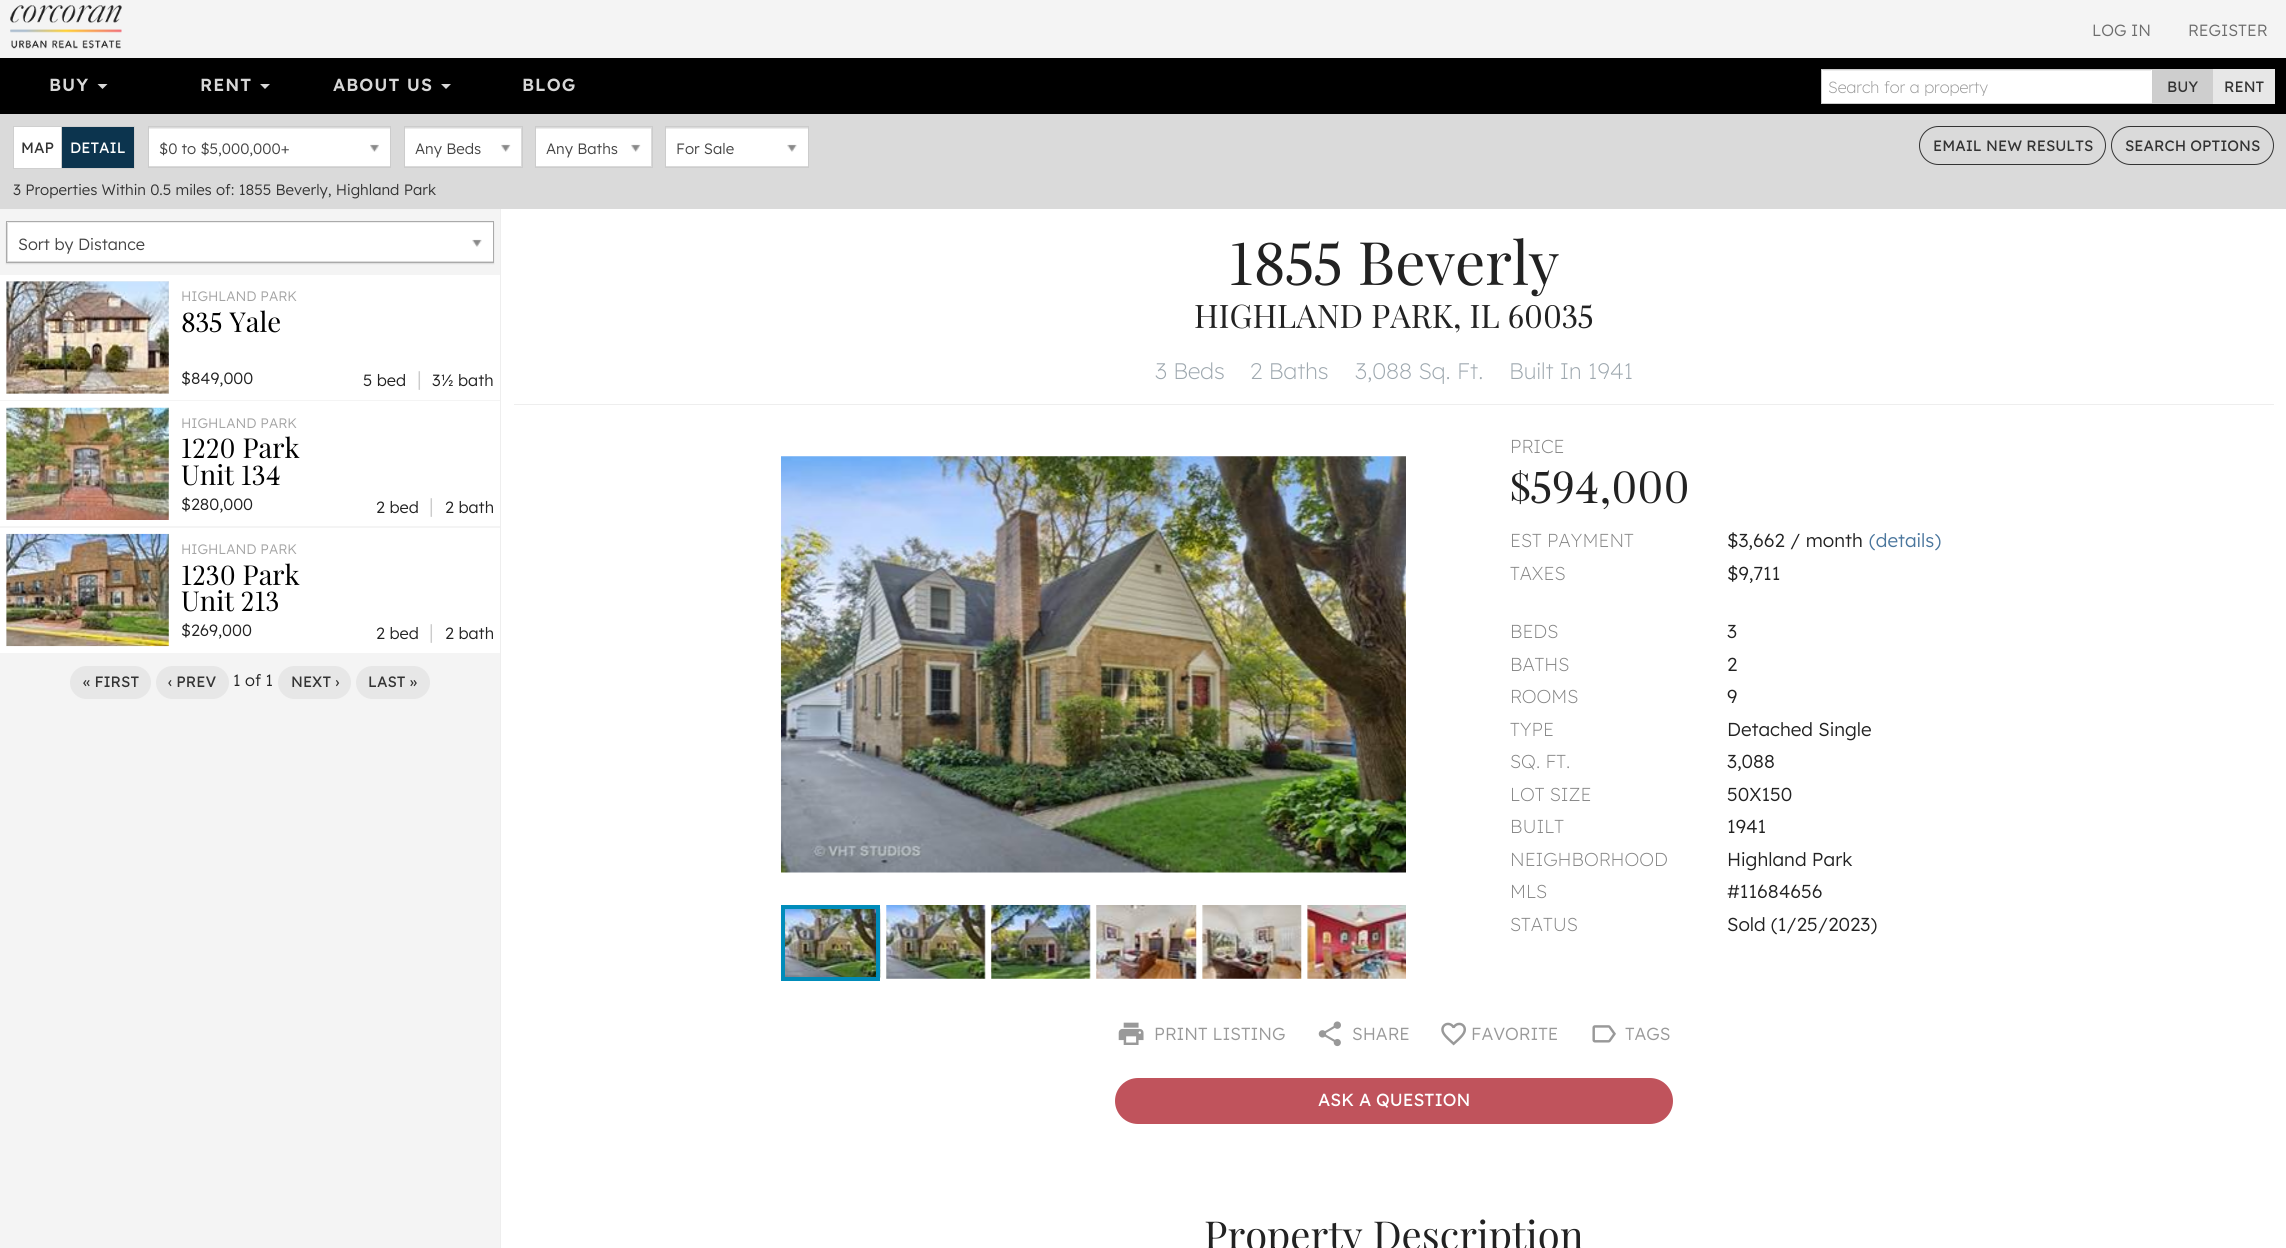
#include <cairo/cairo.h>
#include <math.h>
#include <stddef.h>

static cairo_t *cr;

static void use_color(int r, int g, int b) {
  cairo_set_source_rgb(cr, r / 255.0, g / 255.0, b / 255.0);
}

static void text(double x, double y, const char *s, const char *family, double size, int italic, int bold, int r, int g, int b) {
  cairo_select_font_face(cr, family, italic ? CAIRO_FONT_SLANT_ITALIC : CAIRO_FONT_SLANT_NORMAL,
    bold ? CAIRO_FONT_WEIGHT_BOLD : CAIRO_FONT_WEIGHT_NORMAL);
  cairo_set_font_size(cr, size);
  use_color(r, g, b);
  cairo_move_to(cr, x, y);
  cairo_show_text(cr, s);
}

static void spaced_text(double x, double y, const char *s, double letter, double word) {
  cairo_move_to(cr, x, y);
  while (*s) {
    char ch[5] = {0};
    int n = 0;
    do ch[n++] = *s++; while ((*s & 0xC0) == 0x80);
    cairo_show_text(cr, ch);
    cairo_rel_move_to(cr, letter + word * (*ch == ' '), 0);
  }
}

static void box(double x, double y, double w, double h, int r, int g, int b) {
  use_color(r, g, b);
  cairo_rectangle(cr, x, y, w, h);
  cairo_fill(cr);
}

static void round_rect(double x, double y, double w, double h, double r) {
  cairo_new_sub_path(cr);
  cairo_arc(cr, x + w - r, y + h - r, r, 0, M_PI / 2);
  cairo_arc(cr, x + r, y + h - r, r, M_PI / 2, M_PI);
  cairo_arc(cr, x + r, y + r, r, M_PI, 1.5 * M_PI);
  cairo_arc(cr, x + w - r, y + r, r, 1.5 * M_PI, 2 * M_PI);
  cairo_close_path(cr);
}

static void shadow(double x, double y, double w, double h, double r, double blur, double alpha) {
  cairo_push_group_with_content(cr, CAIRO_CONTENT_ALPHA);
  cairo_set_operator(cr, CAIRO_OPERATOR_SOURCE);
  for (int i = 15; i >= -15 && fmin(w, h) + blur * i / 3 > 0; i -= 2) {
    double e = blur * i / 6;
    cairo_set_source_rgba(cr, 0, 0, 0, alpha * erfc((i - 1) / 8.5) / 2);
    round_rect(x - e, y - e, w + 2 * e, h + 2 * e, fmax(0, fmin(r + e + blur * .6, fmin(w, h) / 2 + e)));
    cairo_fill(cr);
  }
  cairo_pattern_t *soft = cairo_pop_group(cr);
  cairo_mask(cr, soft);
  cairo_pattern_destroy(soft);
}

static void picture(const char *path, double x, double y, double w, double h) {
  cairo_surface_t *image = cairo_image_surface_create_from_png(path);
  cairo_save(cr);
  cairo_set_source_surface(cr, image, x, y);
  cairo_rectangle(cr, x, y, w, h);
  cairo_fill(cr);
  cairo_restore(cr);
  cairo_surface_destroy(image);
}

static void draw(void) {
  use_color(244, 244, 244);
  cairo_paint(cr);
  picture("img_01.png", 10, 5, 112, 44);
  box(0, 58, 2286, 56, 0, 0, 0);
  use_color(215, 215, 215);
  cairo_new_path(cr);
  cairo_move_to(cr, 97.5, 84);
  cairo_line_to(cr, 107.5, 84);
  cairo_line_to(cr, 102.5, 89);
  cairo_close_path(cr);
  cairo_fill(cr);
  cairo_new_path(cr);
  cairo_move_to(cr, 260, 84);
  cairo_line_to(cr, 270, 84);
  cairo_line_to(cr, 265, 89);
  cairo_close_path(cr);
  cairo_fill(cr);
  cairo_new_path(cr);
  cairo_move_to(cr, 441, 84);
  cairo_line_to(cr, 451, 84);
  cairo_line_to(cr, 446, 89);
  cairo_close_path(cr);
  cairo_fill(cr);
  box(1822, 70, 330, 33, 255, 255, 255);
  box(1823, 70, 328, 1, 236, 236, 236);
  cairo_rectangle(cr, 1821.5, 69.5, 331, 34);
  use_color(204, 204, 204);
  cairo_set_line_width(cr, 1);
  cairo_stroke(cr);
  box(2153, 69, 60, 35, 206, 206, 206);
  box(2213, 69, 62, 35, 231, 231, 231);
  box(0, 114, 2286, 95, 218, 218, 218);
  box(14, 127, 47, 41, 255, 255, 255);
  cairo_rectangle(cr, 13.5, 126.5, 49, 42);
  use_color(207, 207, 207);
  cairo_stroke(cr);
  use_color(12, 52, 78);
  cairo_rectangle(cr, 61.5, 126.5, 73, 42);
  cairo_fill_preserve(cr);
  use_color(207, 207, 207);
  cairo_stroke(cr);
  box(149, 129, 241, 37, 255, 255, 255);
  box(149, 128, 241, 1, 236, 236, 236);
  cairo_rectangle(cr, 148.5, 126.5, 242, 41);
  use_color(204, 204, 204);
  cairo_stroke(cr);
  picture("img_02.png", 370, 144, 9, 8);
  box(405, 129, 116, 37, 255, 255, 255);
  box(405, 128, 116, 1, 236, 236, 236);
  cairo_rectangle(cr, 404.5, 126.5, 118, 41);
  use_color(204, 204, 204);
  cairo_stroke(cr);
  picture("img_03.png", 501, 144, 10, 8);
  box(536, 129, 115, 37, 255, 255, 255);
  box(536, 128, 115, 1, 236, 236, 236);
  cairo_rectangle(cr, 535.5, 126.5, 117, 41);
  use_color(204, 204, 204);
  cairo_stroke(cr);
  picture("img_03.png", 631, 144, 10, 8);
  box(666, 129, 142, 37, 255, 255, 255);
  box(666, 128, 142, 1, 236, 236, 236);
  cairo_rectangle(cr, 665.5, 126.5, 143, 41);
  use_color(204, 204, 204);
  cairo_stroke(cr);
  picture("img_04.png", 787, 144, 10, 8);
  round_rect(1919.5, 126.5, 186, 38, 19);
  use_color(51, 51, 51);
  cairo_stroke(cr);
  round_rect(2111.5, 126.5, 162, 38, 19);
  cairo_stroke(cr);
  use_color(0, 0, 0);
  shadow(6, 223, 488, 41, 0, 0.5, 0.1);
  box(8, 223, 485, 38, 255, 255, 255);
  cairo_rectangle(cr, 6.5, 221.5, 487, 41);
  use_color(170, 170, 170);
  cairo_stroke(cr);
  picture("img_05.png", 472, 239, 10, 8);
  box(0, 275, 500, 125, 255, 255, 255);
  box(6, 281, 163, 113, 238, 238, 238);
  picture("img_06.png", 6, 281, 163, 113);
  box(0, 401, 500, 125, 255, 255, 255);
  box(6, 408, 163, 112, 238, 238, 238);
  picture("img_07.png", 6, 407, 163, 113);
  box(0, 528, 500, 125, 255, 255, 255);
  box(6, 534, 163, 112, 238, 238, 238);
  picture("img_08.png", 6, 533, 163, 114);
  use_color(231, 231, 231);
  round_rect(70, 666, 81, 33, 16.5);
  cairo_fill(cr);
  round_rect(156, 666, 73, 33, 16.5);
  cairo_fill(cr);
  round_rect(278, 666, 73, 33, 16.5);
  cairo_fill(cr);
  round_rect(356, 666, 74, 33, 16.5);
  cairo_fill(cr);
  box(501, 209, 1785, 1039, 255, 255, 255);
  box(500, 209, 1, 1039, 238, 238, 238);
  box(514, 404, 1760, 1, 238, 238, 238);
  picture("img_09.png", 781, 456, 625, 417);
  picture("img_10.png", 785, 908, 96, 70);
  cairo_rectangle(cr, 783, 907, 95, 72);
  use_color(0, 140, 186);
  cairo_set_line_width(cr, 4);
  cairo_stroke(cr);
  picture("img_11.png", 886, 905, 100, 74);
  picture("img_12.png", 991, 905, 100, 74);
  picture("img_13.png", 1096, 905, 101, 74);
  picture("img_14.png", 1202, 905, 100, 74);
  picture("img_15.png", 1307, 905, 99, 74);
  picture("img_16.png", 1118, 1022, 26, 23);
  picture("img_17.png", 1318, 1021, 23, 26);
  picture("img_18.png", 1441, 1022, 25, 24);
  picture("img_19.png", 1592, 1025, 24, 18);
  use_color(192, 83, 92);
  round_rect(1115, 1078, 558, 46, 23);
  cairo_fill(cr);
  text(2092, 36, "LOG IN", "Lexend", 16.25, 0, 0, 109, 109, 109);
  text(2188, 36, "REGISTER", "Lexend", 16.25, 0, 0, 109, 109, 109);
  cairo_select_font_face(cr, "Lexend SemiBold", CAIRO_FONT_SLANT_NORMAL, CAIRO_FONT_WEIGHT_NORMAL);
  cairo_set_font_size(cr, 17.5);
  use_color(215, 215, 215);
  spaced_text(49, 91, "BUY", 1, 0);
  spaced_text(200, 91, "RENT", 1, 0);
  spaced_text(333, 91, "ABOUT US", 1, 0);
  spaced_text(522, 91, "BLOG", 1, 0);
  cairo_save(cr);
  cairo_rectangle(cr, 1828, 76, 321, 20);
  cairo_clip(cr);
  text(1828, 93, "Search for a property", "Lexend Light", 16.25, 0, 0, 153, 153, 153);
  cairo_restore(cr);
  text(2167, 92, "BUY", "Lexend Medium", 15, 0, 0, 51, 51, 51);
  text(2224, 92, "RENT", "Lexend Medium", 15, 0, 0, 51, 51, 51);
  text(21, 153, "MAP", "Lexend Medium", 15, 0, 0, 51, 51, 51);
  text(70, 153, "DETAIL", "Lexend Medium", 15, 0, 0, 255, 255, 255);
  text(159, 154, "$0 to $5,000,000+", "Lexend", 15, 0, 0, 68, 68, 68);
  text(415, 154, "Any Beds", "Lexend", 15, 0, 0, 68, 68, 68);
  text(546, 154, "Any Baths", "Lexend", 15, 0, 0, 68, 68, 68);
  text(676, 154, "For Sale", "Lexend", 15, 0, 0, 68, 68, 68);
  text(1933, 151, "EMAIL NEW RESULTS", "Lexend Medium", 15, 0, 0, 51, 51, 51);
  text(2125, 151, "SEARCH OPTIONS", "Lexend Medium", 15, 0, 0, 51, 51, 51);
  text(13, 195, "3 Properties Within 0.5 miles of: 1855 Beverly, Highland Park", "Lexend", 15, 0, 0, 51, 51, 51);
  text(18, 250, "Sort by Distance", "Lexend", 16.25, 0, 0, 68, 68, 68);
  text(181, 301, "HIGHLAND PARK", "Lexend", 13.75, 0, 0, 163, 163, 163);
  text(181, 332, "835 Yale", "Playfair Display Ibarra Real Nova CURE", 27.5, 0, 0, 0, 0, 0);
  text(181, 384, "$849,000", "Lexend", 16.25, 0, 0, 34, 34, 34);
  text(363, 386, "5 bed", "Lexend", 16.25, 0, 0, 34, 34, 34);
  text(417, 386, "|", "Lexend", 20, 0, 0, 204, 204, 204);
  text(432, 386, "3½ bath", "Lexend", 16.25, 0, 0, 34, 34, 34);
  text(181, 428, "HIGHLAND PARK", "Lexend", 13.75, 0, 0, 163, 163, 163);
  text(181, 458, "1220 Park", "Playfair Display Ibarra Real Nova CURE", 27.5, 0, 0, 0, 0, 0);
  text(181, 485, "Unit 134", "Playfair Display Ibarra Real Nova CURE", 27.5, 0, 0, 0, 0, 0);
  text(181, 510, "$280,000", "Lexend", 16.25, 0, 0, 34, 34, 34);
  text(376, 513, "2 bed", "Lexend", 16.25, 0, 0, 34, 34, 34);
  text(429, 513, "|", "Lexend", 20, 0, 0, 204, 204, 204);
  text(445, 513, "2 bath", "Lexend", 16.25, 0, 0, 34, 34, 34);
  text(181, 554, "HIGHLAND PARK", "Lexend", 13.75, 0, 0, 163, 163, 163);
  text(181, 585, "1230 Park", "Playfair Display Ibarra Real Nova CURE", 27.5, 0, 0, 0, 0, 0);
  text(181, 611, "Unit 213", "Playfair Display Ibarra Real Nova CURE", 27.5, 0, 0, 0, 0, 0);
  text(181, 636, "$269,000", "Lexend", 16.25, 0, 0, 34, 34, 34);
  text(376, 639, "2 bed", "Lexend", 16.25, 0, 0, 34, 34, 34);
  text(429, 639, "|", "Lexend", 20, 0, 0, 204, 204, 204);
  text(445, 639, "2 bath", "Lexend", 16.25, 0, 0, 34, 34, 34);
  text(83, 687, "« FIRST", "Lexend Medium", 15, 0, 0, 51, 51, 51);
  text(168, 687, "‹ PREV", "Lexend Medium", 15, 0, 0, 51, 51, 51);
  text(233, 686, "1 of 1", "Lexend", 16.25, 0, 0, 34, 34, 34);
  text(291, 687, "NEXT ›", "Lexend Medium", 15, 0, 0, 51, 51, 51);
  text(368, 687, "LAST »", "Lexend Medium", 15, 0, 0, 51, 51, 51);
  text(1229, 285, "1855 Beverly", "Playfair Display Ibarra Real Nova CURE", 60, 0, 0, 34, 34, 34);
  text(1194, 328, "HIGHLAND PARK, IL 60035", "Playfair Display Ibarra Real Nova CURE", 32.5, 0, 0, 34, 34, 34);
  text(1155, 379, "3 Beds", "Lexend Light", 22.5, 0, 0, 158, 168, 175);
  text(1250, 379, "2 Baths", "Lexend Light", 22.5, 0, 0, 158, 168, 175);
  text(1355, 379, "3,088 Sq. Ft.", "Lexend Light", 22.5, 0, 0, 158, 168, 175);
  text(1509, 379, "Built In 1941", "Lexend Light", 22.5, 0, 0, 158, 168, 175);
  text(1510, 453, "PRICE", "Lexend Light", 18.75, 0, 0, 132, 132, 132);
  text(1510, 503, "$594,000", "Playfair Display Ibarra Real Nova CURE", 45, 0, 0, 34, 34, 34);
  text(1510, 547, "EST PAYMENT", "Lexend Light", 18.75, 0, 0, 132, 132, 132);
  text(1727, 547, "$3,662 / month", "Lexend", 18.75, 0, 0, 34, 34, 34);
  text(1869, 547, "(details)", "Lexend", 18.75, 0, 0, 74, 118, 157);
  text(1510, 580, "TAXES", "Lexend Light", 18.75, 0, 0, 132, 132, 132);
  text(1727, 580, "$9,711", "Lexend", 18.75, 0, 0, 34, 34, 34);
  text(1510, 638, "BEDS", "Lexend Light", 18.75, 0, 0, 132, 132, 132);
  text(1727, 638, "3", "Lexend", 18.75, 0, 0, 34, 34, 34);
  text(1510, 671, "BATHS", "Lexend Light", 18.75, 0, 0, 132, 132, 132);
  text(1727, 671, "2", "Lexend", 18.75, 0, 0, 34, 34, 34);
  text(1510, 703, "ROOMS", "Lexend Light", 18.75, 0, 0, 132, 132, 132);
  text(1727, 703, "9", "Lexend", 18.75, 0, 0, 34, 34, 34);
  text(1510, 736, "TYPE", "Lexend Light", 18.75, 0, 0, 132, 132, 132);
  text(1727, 736, "Detached Single", "Lexend", 18.75, 0, 0, 34, 34, 34);
  text(1510, 768, "SQ. FT.", "Lexend Light", 18.75, 0, 0, 132, 132, 132);
  text(1727, 768, "3,088", "Lexend", 18.75, 0, 0, 34, 34, 34);
  text(1510, 801, "LOT SIZE", "Lexend Light", 18.75, 0, 0, 132, 132, 132);
  text(1727, 801, "50X150", "Lexend", 18.75, 0, 0, 34, 34, 34);
  text(1510, 833, "BUILT", "Lexend Light", 18.75, 0, 0, 132, 132, 132);
  text(1727, 833, "1941", "Lexend", 18.75, 0, 0, 34, 34, 34);
  text(1510, 866, "NEIGHBORHOOD", "Lexend Light", 18.75, 0, 0, 132, 132, 132);
  text(1727, 866, "Highland Park", "Lexend", 18.75, 0, 0, 34, 34, 34);
  text(1510, 898, "MLS", "Lexend Light", 18.75, 0, 0, 132, 132, 132);
  text(1727, 898, "#11684656", "Lexend", 18.75, 0, 0, 34, 34, 34);
  text(1510, 931, "STATUS", "Lexend Light", 18.75, 0, 0, 132, 132, 132);
  text(1727, 931, "Sold (1/25/2023)", "Lexend", 18.75, 0, 0, 34, 34, 34);
  text(1154, 1040, "PRINT LISTING", "Lexend", 17.5, 0, 0, 153, 153, 153);
  text(1352, 1040, "SHARE", "Lexend", 17.5, 0, 0, 153, 153, 153);
  text(1471, 1040, "FAVORITE", "Lexend", 17.5, 0, 0, 153, 153, 153);
  text(1625, 1040, "TAGS", "Lexend", 17.5, 0, 0, 153, 153, 153);
  text(1318, 1106, "ASK A QUESTION", "Lexend Medium", 17.5, 0, 0, 255, 255, 255);
  text(1204, 1250, "Property Description", "Playfair Display Ibarra Real Nova CURE", 40, 0, 0, 34, 34, 34);
}

int main(void) {
  cairo_surface_t *surface = cairo_image_surface_create(CAIRO_FORMAT_RGB24, 2286, 1248);
  cr = cairo_create(surface);
  cairo_font_options_t *options = cairo_font_options_create();
  cairo_font_options_set_hint_metrics(options, CAIRO_HINT_METRICS_OFF);
  cairo_font_options_set_hint_style(options, CAIRO_HINT_STYLE_NONE);
  cairo_set_font_options(cr, options);
  cairo_set_miter_limit(cr, 4);
  draw();
  cairo_surface_write_to_png(surface, "out.png");
  cairo_font_options_destroy(options);
  cairo_destroy(cr);
  cairo_surface_destroy(surface);
  return 0;
}
